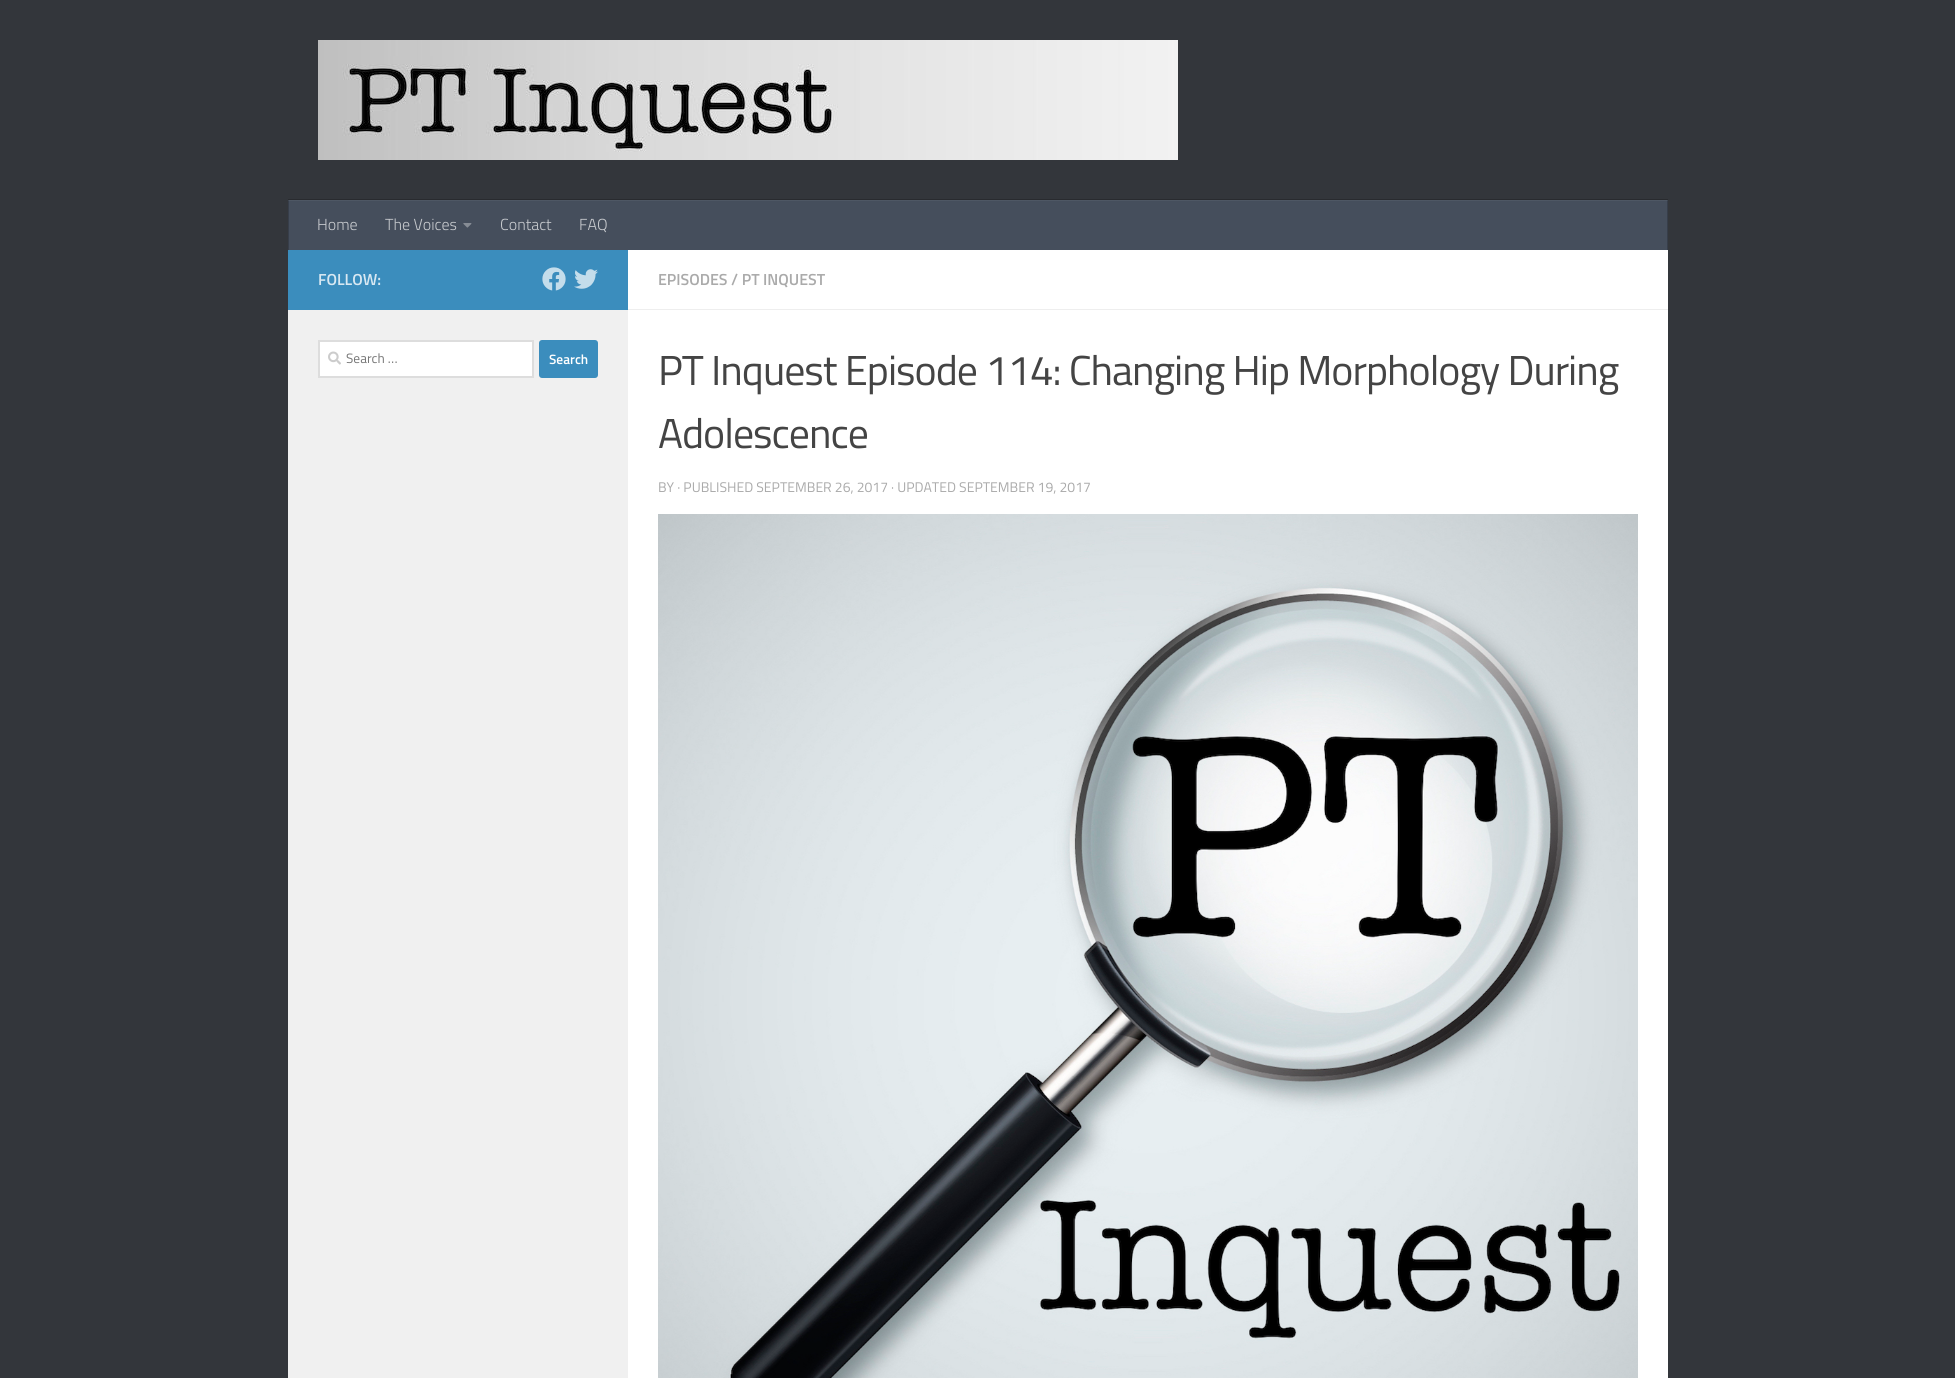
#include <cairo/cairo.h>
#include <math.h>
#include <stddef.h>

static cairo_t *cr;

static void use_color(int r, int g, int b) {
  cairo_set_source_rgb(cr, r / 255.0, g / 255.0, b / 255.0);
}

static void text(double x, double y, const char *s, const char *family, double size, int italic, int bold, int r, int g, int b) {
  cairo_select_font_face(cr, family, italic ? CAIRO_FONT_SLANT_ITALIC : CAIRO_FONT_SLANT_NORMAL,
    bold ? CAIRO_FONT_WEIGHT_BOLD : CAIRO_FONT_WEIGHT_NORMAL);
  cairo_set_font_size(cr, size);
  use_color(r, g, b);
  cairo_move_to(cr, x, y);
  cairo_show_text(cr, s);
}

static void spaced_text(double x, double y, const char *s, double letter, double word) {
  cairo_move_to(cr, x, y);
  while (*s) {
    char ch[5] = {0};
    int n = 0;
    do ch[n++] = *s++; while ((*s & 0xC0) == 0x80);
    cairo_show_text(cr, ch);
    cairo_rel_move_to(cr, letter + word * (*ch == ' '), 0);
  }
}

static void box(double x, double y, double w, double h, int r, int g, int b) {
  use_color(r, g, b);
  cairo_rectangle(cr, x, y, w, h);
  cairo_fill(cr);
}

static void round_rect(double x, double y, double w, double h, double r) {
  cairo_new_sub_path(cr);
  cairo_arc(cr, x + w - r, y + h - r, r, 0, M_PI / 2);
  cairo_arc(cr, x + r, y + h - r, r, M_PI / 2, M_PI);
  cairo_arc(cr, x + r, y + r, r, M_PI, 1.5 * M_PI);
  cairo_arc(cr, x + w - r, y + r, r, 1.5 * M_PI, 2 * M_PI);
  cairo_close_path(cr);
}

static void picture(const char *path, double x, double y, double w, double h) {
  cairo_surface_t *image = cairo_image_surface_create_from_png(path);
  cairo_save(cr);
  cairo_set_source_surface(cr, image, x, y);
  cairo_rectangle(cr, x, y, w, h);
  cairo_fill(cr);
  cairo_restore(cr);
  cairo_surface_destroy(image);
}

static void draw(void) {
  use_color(51, 54, 59);
  cairo_paint(cr);
  picture("img_01.png", 318, 40, 860, 120);
  box(288, 199, 1380, 1, 41, 43, 47);
  box(289, 201, 1378, 49, 69, 78, 92);
  box(288, 200, 1380, 1, 78, 87, 100);
  box(1667, 200, 1, 50, 55, 62, 74);
  box(1667, 200, 1, 1, 65, 72, 83);
  box(288, 200, 1, 50, 55, 62, 74);
  box(288, 200, 1, 1, 65, 72, 83);
  picture("img_02.png", 463, 223, 9, 5);
  box(628, 250, 1040, 1128, 255, 255, 255);
  box(288, 250, 340, 60, 59, 141, 189);
  picture("img_03.png", 542, 267, 24, 24);
  picture("img_04.png", 574, 269, 24, 20);
  box(288, 310, 340, 1068, 240, 240, 240);
  use_color(255, 255, 255);
  cairo_rectangle(cr, 319, 341, 214, 36);
  cairo_fill_preserve(cr);
  use_color(221, 221, 221);
  cairo_stroke(cr);
  picture("img_05.png", 328, 351, 13, 14);
  use_color(59, 141, 189);
  round_rect(539, 340, 59, 38, 3);
  cairo_fill(cr);
  box(628, 309, 1040, 1, 238, 238, 238);
  picture("img_06.png", 658, 514, 980, 864);
  text(317, 230, "Home", "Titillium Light", 16, 0, 0, 199, 202, 206);
  text(385, 230, "The Voices", "Titillium Light", 16, 0, 0, 199, 202, 206);
  text(500, 230, "Contact", "Titillium Light", 16, 0, 0, 199, 202, 206);
  text(579, 230, "FAQ", "Titillium Light", 16, 0, 0, 199, 202, 206);
  text(318, 285, "FOLLOW:", "Titillium SemiBold", 16, 0, 0, 216, 232, 242);
  text(346, 363, "Search …", "Titillium", 13.5, 0, 0, 117, 117, 117);
  text(549, 364, "Search", "Titillium SemiBold", 13.5, 0, 0, 255, 255, 255);
  text(658, 285, "EPISODES / PT INQUEST", "Titillium SemiBold", 16, 0, 0, 170, 170, 170);
  cairo_select_font_face(cr, "Titillium", CAIRO_FONT_SLANT_NORMAL, CAIRO_FONT_WEIGHT_NORMAL);
  cairo_set_font_size(cr, 41.9);
  use_color(68, 68, 68);
  spaced_text(658, 385, "PT Inquest Episode 114: Changing Hip Morphology During", -1, 0);
  spaced_text(658, 448, "Adolescence", -1, 0);
  text(658, 492, "BY · PUBLISHED SEPTEMBER 26, 2017 · UPDATED SEPTEMBER 19, 2017", "Titillium", 14, 0, 0, 170, 170, 170);
}

int main(void) {
  cairo_surface_t *surface = cairo_image_surface_create(CAIRO_FORMAT_RGB24, 1955, 1378);
  cr = cairo_create(surface);
  cairo_font_options_t *options = cairo_font_options_create();
  cairo_font_options_set_hint_metrics(options, CAIRO_HINT_METRICS_OFF);
  cairo_font_options_set_hint_style(options, CAIRO_HINT_STYLE_NONE);
  cairo_set_font_options(cr, options);
  cairo_set_miter_limit(cr, 4);
  draw();
  cairo_surface_write_to_png(surface, "out.png");
  cairo_font_options_destroy(options);
  cairo_destroy(cr);
  cairo_surface_destroy(surface);
  return 0;
}
